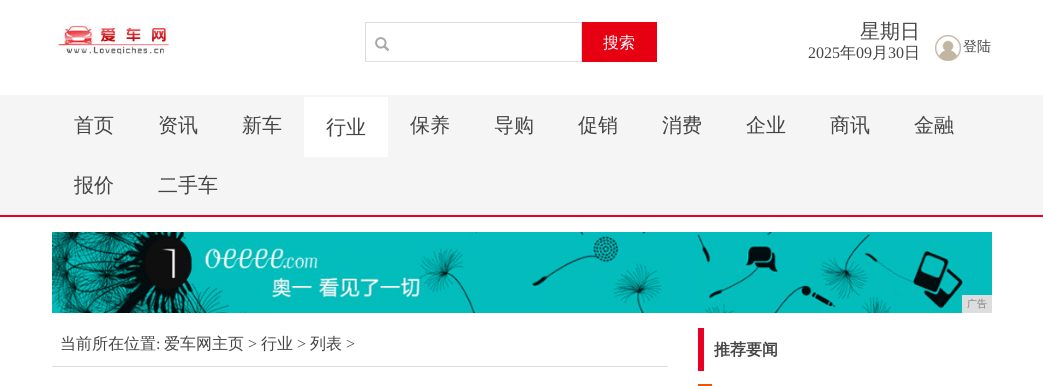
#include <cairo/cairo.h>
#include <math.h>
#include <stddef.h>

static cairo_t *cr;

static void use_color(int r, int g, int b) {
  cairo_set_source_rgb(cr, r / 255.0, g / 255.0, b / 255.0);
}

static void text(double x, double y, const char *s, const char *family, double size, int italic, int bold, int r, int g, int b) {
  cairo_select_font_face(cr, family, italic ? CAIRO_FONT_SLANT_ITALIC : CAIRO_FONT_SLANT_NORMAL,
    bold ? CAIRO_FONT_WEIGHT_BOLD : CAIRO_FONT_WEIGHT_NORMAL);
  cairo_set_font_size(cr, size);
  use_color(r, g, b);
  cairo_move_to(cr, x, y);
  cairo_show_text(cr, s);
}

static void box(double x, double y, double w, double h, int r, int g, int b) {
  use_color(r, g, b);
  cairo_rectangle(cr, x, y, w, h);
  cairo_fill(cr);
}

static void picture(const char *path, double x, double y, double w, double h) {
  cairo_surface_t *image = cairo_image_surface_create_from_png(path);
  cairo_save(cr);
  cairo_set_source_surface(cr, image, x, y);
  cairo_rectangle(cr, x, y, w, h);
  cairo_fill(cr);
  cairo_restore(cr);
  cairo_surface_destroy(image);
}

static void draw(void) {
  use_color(255, 255, 255);
  cairo_paint(cr);
  picture("img_01.png", 57, 25, 115, 30);
  cairo_rectangle(cr, 365.5, 22.5, 216, 39);
  use_color(221, 221, 221);
  cairo_set_line_width(cr, 1);
  cairo_stroke(cr);
  box(582, 22, 75, 40, 230, 0, 18);
  picture("img_02.png", 375, 37, 14, 14);
  picture("img_03.png", 935, 35, 26, 26);
  box(0, 95, 1043, 120, 245, 245, 245);
  box(0, 215, 1043, 2, 232, 0, 38);
  box(304, 97, 84, 60, 255, 255, 255);
  picture("img_04.png", 52, 232, 940, 81);
  box(962, 295, 30, 18, 221, 221, 221);
  box(52, 366, 616, 1, 221, 221, 221);
  box(698, 328, 6, 43, 232, 0, 38);
  box(698, 384, 14, 2, 234, 85, 10);
  text(603, 48, "搜索", "WenQuanYi Zen Hei Medium", 16, 0, 0, 255, 255, 255);
  text(860, 38, "星期日", "WenQuanYi Zen Hei Medium", 20, 0, 0, 68, 68, 68);
  text(808, 58, "2025", "Liberation Serif", 16, 0, 0, 68, 68, 68);
  text(840, 58, "年", "WenQuanYi Zen Hei Medium", 16, 0, 0, 68, 68, 68);
  text(856, 58, "09", "Liberation Serif", 16, 0, 0, 68, 68, 68);
  text(872, 58, "月", "WenQuanYi Zen Hei Medium", 16, 0, 0, 68, 68, 68);
  text(888, 58, "30", "Liberation Serif", 16, 0, 0, 68, 68, 68);
  text(904, 58, "日", "WenQuanYi Zen Hei Medium", 16, 0, 0, 68, 68, 68);
  text(963, 51, "登陆", "WenQuanYi Zen Hei Medium", 14, 0, 0, 68, 68, 68);
  text(74, 132, "首页", "WenQuanYi Zen Hei Medium", 20, 0, 0, 68, 68, 68);
  text(158, 132, "资讯", "WenQuanYi Zen Hei Medium", 20, 0, 0, 68, 68, 68);
  text(242, 132, "新车", "WenQuanYi Zen Hei Medium", 20, 0, 0, 68, 68, 68);
  text(326, 134, "行业", "WenQuanYi Zen Hei Medium", 20, 0, 0, 68, 68, 68);
  text(410, 132, "保养", "WenQuanYi Zen Hei Medium", 20, 0, 0, 68, 68, 68);
  text(494, 132, "导购", "WenQuanYi Zen Hei Medium", 20, 0, 0, 68, 68, 68);
  text(578, 132, "促销", "WenQuanYi Zen Hei Medium", 20, 0, 0, 68, 68, 68);
  text(662, 132, "消费", "WenQuanYi Zen Hei Medium", 20, 0, 0, 68, 68, 68);
  text(746, 132, "企业", "WenQuanYi Zen Hei Medium", 20, 0, 0, 68, 68, 68);
  text(830, 132, "商讯", "WenQuanYi Zen Hei Medium", 20, 0, 0, 68, 68, 68);
  text(914, 132, "金融", "WenQuanYi Zen Hei Medium", 20, 0, 0, 68, 68, 68);
  text(74, 192, "报价", "WenQuanYi Zen Hei Medium", 20, 0, 0, 68, 68, 68);
  text(158, 192, "二手车", "WenQuanYi Zen Hei Medium", 20, 0, 0, 68, 68, 68);
  text(967, 307, "广告", "WenQuanYi Zen Hei Medium", 10, 0, 0, 128, 128, 128);
  text(60, 349, "当前所在位置", "WenQuanYi Zen Hei Medium", 16, 0, 0, 68, 68, 68);
  text(156, 349, ":", "Liberation Serif", 16, 0, 0, 68, 68, 68);
  text(164, 349, "爱车网主页", "WenQuanYi Zen Hei Medium", 16, 0, 0, 68, 68, 68);
  text(248, 349, ">", "Liberation Serif", 16, 0, 0, 68, 68, 68);
  text(261, 349, "行业", "WenQuanYi Zen Hei Medium", 16, 0, 0, 68, 68, 68);
  text(297, 349, ">", "Liberation Serif", 16, 0, 0, 68, 68, 68);
  text(310, 349, "列表", "WenQuanYi Zen Hei Medium", 16, 0, 0, 68, 68, 68);
  text(346, 349, ">", "Liberation Serif", 16, 0, 0, 68, 68, 68);
  text(714, 355, "推荐要闻", "WenQuanYi Zen Hei", 16, 0, 1, 68, 68, 68);
}

int main(void) {
  cairo_surface_t *surface = cairo_image_surface_create(CAIRO_FORMAT_RGB24, 1043, 386);
  cr = cairo_create(surface);
  cairo_font_options_t *options = cairo_font_options_create();
  cairo_font_options_set_hint_metrics(options, CAIRO_HINT_METRICS_OFF);
  cairo_font_options_set_hint_style(options, CAIRO_HINT_STYLE_NONE);
  cairo_set_font_options(cr, options);
  cairo_set_miter_limit(cr, 4);
  draw();
  cairo_surface_write_to_png(surface, "out.png");
  cairo_font_options_destroy(options);
  cairo_destroy(cr);
  cairo_surface_destroy(surface);
  return 0;
}
